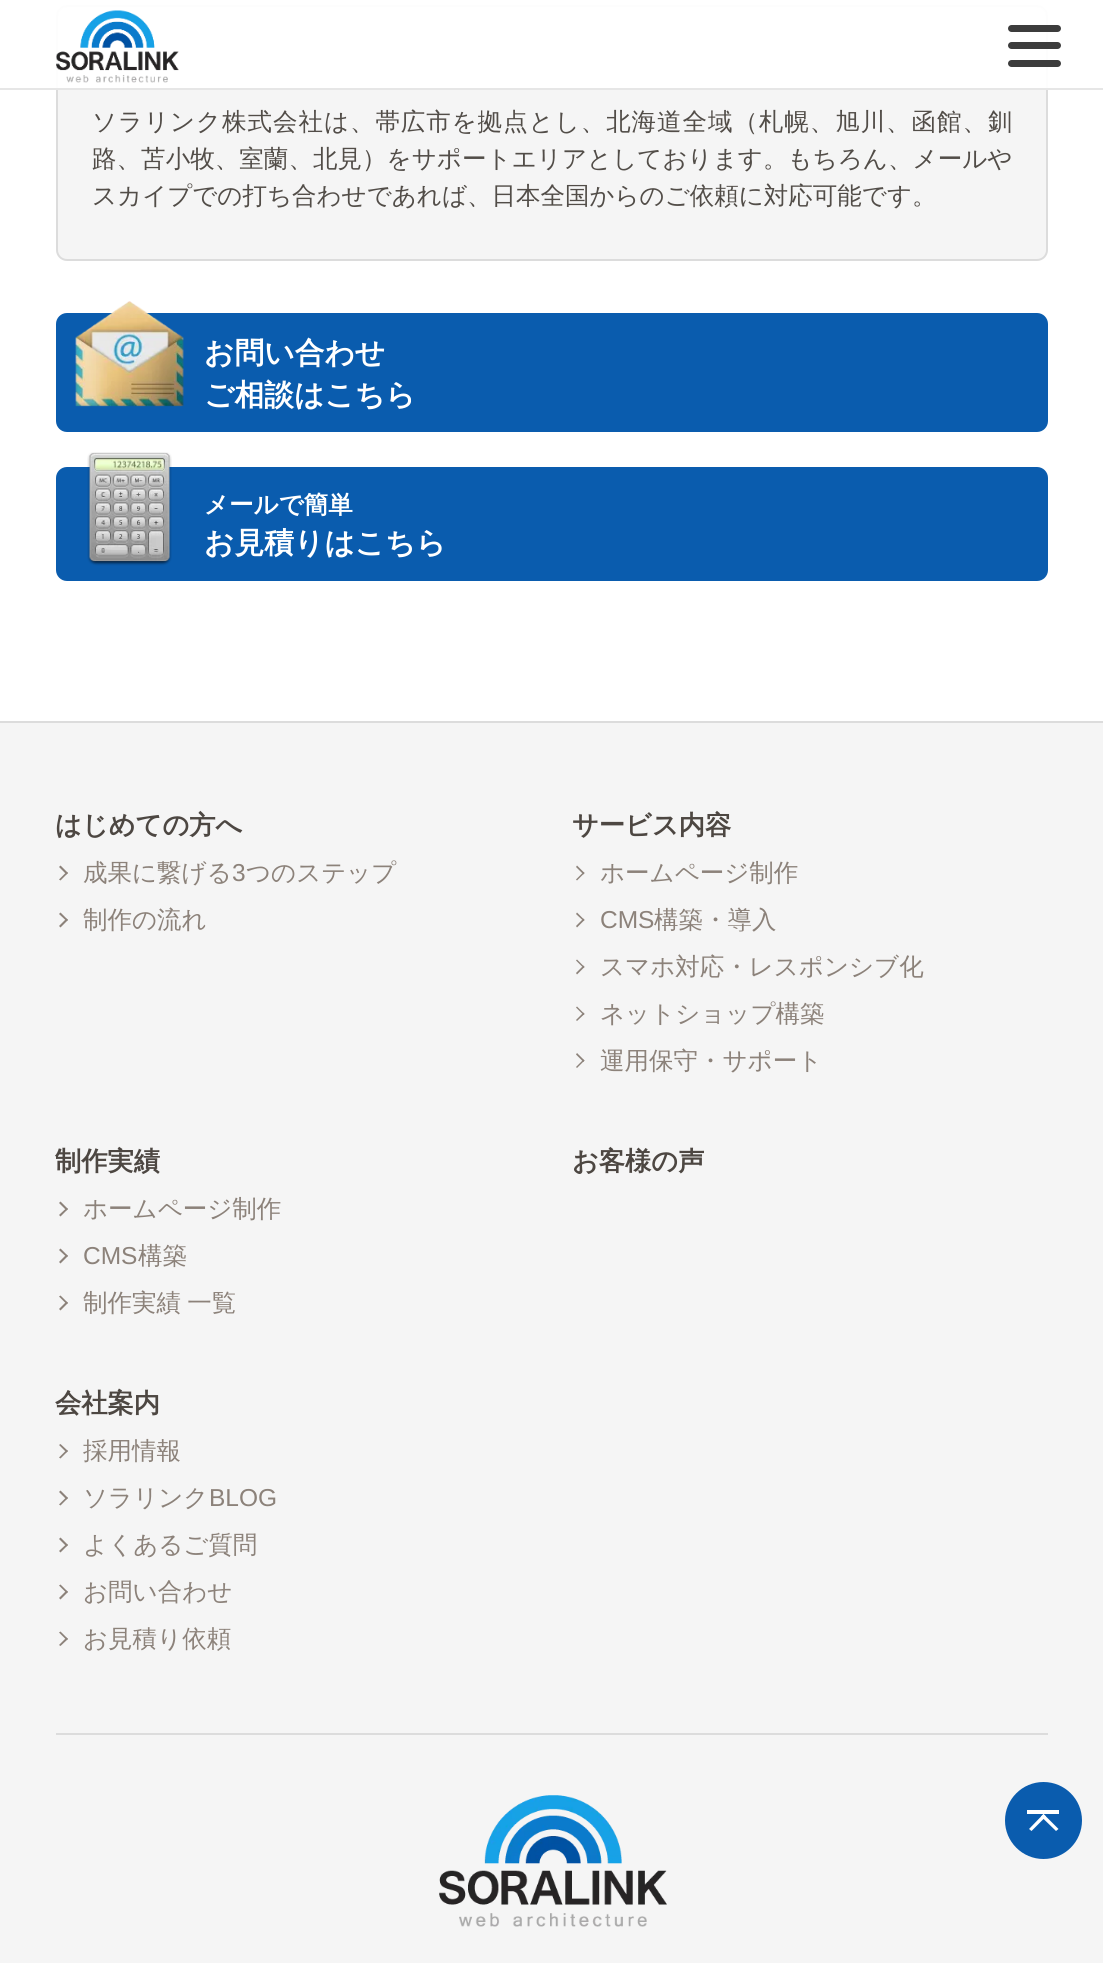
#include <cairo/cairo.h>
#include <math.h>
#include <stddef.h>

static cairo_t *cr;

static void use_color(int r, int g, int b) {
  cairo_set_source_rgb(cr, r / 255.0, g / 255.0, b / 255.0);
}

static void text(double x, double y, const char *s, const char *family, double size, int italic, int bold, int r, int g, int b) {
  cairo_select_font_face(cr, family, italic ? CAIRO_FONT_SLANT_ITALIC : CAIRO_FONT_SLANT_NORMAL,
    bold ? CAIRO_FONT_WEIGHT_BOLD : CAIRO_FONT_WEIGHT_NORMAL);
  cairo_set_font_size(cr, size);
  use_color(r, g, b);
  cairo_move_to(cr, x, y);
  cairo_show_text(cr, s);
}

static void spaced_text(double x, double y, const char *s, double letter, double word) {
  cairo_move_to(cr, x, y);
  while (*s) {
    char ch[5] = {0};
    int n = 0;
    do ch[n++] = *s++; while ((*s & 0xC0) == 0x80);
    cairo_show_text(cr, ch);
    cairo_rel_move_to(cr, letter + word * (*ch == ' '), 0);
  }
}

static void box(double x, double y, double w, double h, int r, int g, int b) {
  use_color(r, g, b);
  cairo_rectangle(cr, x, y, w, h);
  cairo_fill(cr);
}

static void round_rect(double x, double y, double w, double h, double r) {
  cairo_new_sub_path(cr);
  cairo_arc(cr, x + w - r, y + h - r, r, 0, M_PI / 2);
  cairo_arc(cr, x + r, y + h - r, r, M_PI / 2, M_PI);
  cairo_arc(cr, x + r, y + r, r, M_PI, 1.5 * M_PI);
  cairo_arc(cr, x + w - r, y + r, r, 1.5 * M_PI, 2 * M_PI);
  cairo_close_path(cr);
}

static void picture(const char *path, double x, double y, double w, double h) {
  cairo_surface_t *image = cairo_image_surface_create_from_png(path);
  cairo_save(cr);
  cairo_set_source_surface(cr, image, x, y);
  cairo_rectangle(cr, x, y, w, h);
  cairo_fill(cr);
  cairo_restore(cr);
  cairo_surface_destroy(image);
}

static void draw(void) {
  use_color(255, 255, 255);
  cairo_paint(cr);
  use_color(245, 245, 245);
  round_rect(57, 6, 990, 254, 10);
  cairo_fill_preserve(cr);
  use_color(220, 220, 220);
  cairo_stroke(cr);
  box(0, 88, 1103, 2, 230, 230, 230);
  cairo_set_source_rgba(cr, 1, 1, 1, 0.95);
  cairo_rectangle(cr, 56, 5, 992, 83);
  cairo_fill(cr);
  picture("img_01.png", 56, 10, 123, 73);
  use_color(60, 60, 60);
  round_rect(1008, 25, 53, 7, 3.5);
  cairo_fill(cr);
  round_rect(1008, 42, 53, 7, 3.5);
  cairo_fill(cr);
  round_rect(1008, 60, 53, 7, 3.5);
  cairo_fill(cr);
  use_color(10, 92, 174);
  round_rect(56, 313, 992, 119, 11);
  cairo_fill(cr);
  picture("img_02.png", 75, 301, 109, 106);
  round_rect(56, 467, 992, 114, 11);
  cairo_fill(cr);
  picture("img_03.png", 87, 452, 85, 114);
  box(0, 723, 1103, 1240, 245, 245, 245);
  box(0, 721, 1103, 2, 220, 220, 220);
  use_color(140, 130, 122);
  cairo_new_path(cr);
  cairo_move_to(cr, 60.5, 865.5);
  cairo_line_to(cr, 68, 873);
  cairo_line_to(cr, 66.5, 874.5);
  cairo_line_to(cr, 59, 867);
  cairo_close_path(cr);
  cairo_fill(cr);
  cairo_new_path(cr);
  cairo_move_to(cr, 66.5, 872);
  cairo_line_to(cr, 68, 873);
  cairo_line_to(cr, 60.5, 880.5);
  cairo_line_to(cr, 59, 879.5);
  cairo_close_path(cr);
  cairo_fill(cr);
  cairo_new_path(cr);
  cairo_move_to(cr, 60.5, 912.5);
  cairo_line_to(cr, 68, 920);
  cairo_line_to(cr, 66.5, 921);
  cairo_line_to(cr, 59, 914);
  cairo_close_path(cr);
  cairo_fill(cr);
  cairo_new_path(cr);
  cairo_move_to(cr, 66.5, 918.5);
  cairo_line_to(cr, 68, 920);
  cairo_line_to(cr, 60.5, 927.5);
  cairo_line_to(cr, 59, 926);
  cairo_close_path(cr);
  cairo_fill(cr);
  cairo_new_path(cr);
  cairo_move_to(cr, 577, 865.5);
  cairo_line_to(cr, 584.5, 873);
  cairo_line_to(cr, 583.5, 874.5);
  cairo_line_to(cr, 576, 867);
  cairo_close_path(cr);
  cairo_fill(cr);
  cairo_new_path(cr);
  cairo_move_to(cr, 583.5, 872);
  cairo_line_to(cr, 584.5, 873);
  cairo_line_to(cr, 577, 880.5);
  cairo_line_to(cr, 576, 879.5);
  cairo_close_path(cr);
  cairo_fill(cr);
  cairo_new_path(cr);
  cairo_move_to(cr, 577, 912.5);
  cairo_line_to(cr, 584.5, 920);
  cairo_line_to(cr, 583.5, 921);
  cairo_line_to(cr, 576, 914);
  cairo_close_path(cr);
  cairo_fill(cr);
  cairo_new_path(cr);
  cairo_move_to(cr, 583.5, 918.5);
  cairo_line_to(cr, 584.5, 920);
  cairo_line_to(cr, 577, 927.5);
  cairo_line_to(cr, 576, 926);
  cairo_close_path(cr);
  cairo_fill(cr);
  cairo_new_path(cr);
  cairo_move_to(cr, 577, 959.5);
  cairo_line_to(cr, 584.5, 967);
  cairo_line_to(cr, 583.5, 968);
  cairo_line_to(cr, 576, 960.5);
  cairo_close_path(cr);
  cairo_fill(cr);
  cairo_new_path(cr);
  cairo_move_to(cr, 583.5, 965.5);
  cairo_line_to(cr, 584.5, 967);
  cairo_line_to(cr, 577, 974.5);
  cairo_line_to(cr, 576, 973);
  cairo_close_path(cr);
  cairo_fill(cr);
  cairo_new_path(cr);
  cairo_move_to(cr, 577, 1006.5);
  cairo_line_to(cr, 584.5, 1014);
  cairo_line_to(cr, 583.5, 1015);
  cairo_line_to(cr, 576, 1007.5);
  cairo_close_path(cr);
  cairo_fill(cr);
  cairo_new_path(cr);
  cairo_move_to(cr, 583.5, 1012.5);
  cairo_line_to(cr, 584.5, 1014);
  cairo_line_to(cr, 577, 1021);
  cairo_line_to(cr, 576, 1020);
  cairo_close_path(cr);
  cairo_fill(cr);
  cairo_new_path(cr);
  cairo_move_to(cr, 577, 1053);
  cairo_line_to(cr, 584.5, 1060.5);
  cairo_line_to(cr, 583.5, 1062);
  cairo_line_to(cr, 576, 1054.5);
  cairo_close_path(cr);
  cairo_fill(cr);
  cairo_new_path(cr);
  cairo_move_to(cr, 583.5, 1059.5);
  cairo_line_to(cr, 584.5, 1060.5);
  cairo_line_to(cr, 577, 1068);
  cairo_line_to(cr, 576, 1067);
  cairo_close_path(cr);
  cairo_fill(cr);
  cairo_new_path(cr);
  cairo_move_to(cr, 60.5, 1201.5);
  cairo_line_to(cr, 68, 1209);
  cairo_line_to(cr, 66.5, 1210.5);
  cairo_line_to(cr, 59, 1203);
  cairo_close_path(cr);
  cairo_fill(cr);
  cairo_new_path(cr);
  cairo_move_to(cr, 66.5, 1208);
  cairo_line_to(cr, 68, 1209);
  cairo_line_to(cr, 60.5, 1216.5);
  cairo_line_to(cr, 59, 1215);
  cairo_close_path(cr);
  cairo_fill(cr);
  cairo_new_path(cr);
  cairo_move_to(cr, 60.5, 1248.5);
  cairo_line_to(cr, 68, 1256);
  cairo_line_to(cr, 66.5, 1257);
  cairo_line_to(cr, 59, 1250);
  cairo_close_path(cr);
  cairo_fill(cr);
  cairo_new_path(cr);
  cairo_move_to(cr, 66.5, 1254.5);
  cairo_line_to(cr, 68, 1256);
  cairo_line_to(cr, 60.5, 1263.5);
  cairo_line_to(cr, 59, 1262);
  cairo_close_path(cr);
  cairo_fill(cr);
  cairo_new_path(cr);
  cairo_move_to(cr, 60.5, 1295.5);
  cairo_line_to(cr, 68, 1303);
  cairo_line_to(cr, 66.5, 1304);
  cairo_line_to(cr, 59, 1296.5);
  cairo_close_path(cr);
  cairo_fill(cr);
  cairo_new_path(cr);
  cairo_move_to(cr, 66.5, 1301.5);
  cairo_line_to(cr, 68, 1303);
  cairo_line_to(cr, 60.5, 1310.5);
  cairo_line_to(cr, 59, 1309);
  cairo_close_path(cr);
  cairo_fill(cr);
  cairo_new_path(cr);
  cairo_move_to(cr, 60.5, 1444);
  cairo_line_to(cr, 68, 1451);
  cairo_line_to(cr, 66.5, 1452.5);
  cairo_line_to(cr, 59, 1445);
  cairo_close_path(cr);
  cairo_fill(cr);
  cairo_new_path(cr);
  cairo_move_to(cr, 66.5, 1450);
  cairo_line_to(cr, 68, 1451);
  cairo_line_to(cr, 60.5, 1458.5);
  cairo_line_to(cr, 59, 1457.5);
  cairo_close_path(cr);
  cairo_fill(cr);
  cairo_new_path(cr);
  cairo_move_to(cr, 60.5, 1490.5);
  cairo_line_to(cr, 68, 1498);
  cairo_line_to(cr, 66.5, 1499.5);
  cairo_line_to(cr, 59, 1492);
  cairo_close_path(cr);
  cairo_fill(cr);
  cairo_new_path(cr);
  cairo_move_to(cr, 66.5, 1497);
  cairo_line_to(cr, 68, 1498);
  cairo_line_to(cr, 60.5, 1505.5);
  cairo_line_to(cr, 59, 1504.5);
  cairo_close_path(cr);
  cairo_fill(cr);
  cairo_new_path(cr);
  cairo_move_to(cr, 60.5, 1537.5);
  cairo_line_to(cr, 68, 1545);
  cairo_line_to(cr, 66.5, 1546.5);
  cairo_line_to(cr, 59, 1539);
  cairo_close_path(cr);
  cairo_fill(cr);
  cairo_new_path(cr);
  cairo_move_to(cr, 66.5, 1544);
  cairo_line_to(cr, 68, 1545);
  cairo_line_to(cr, 60.5, 1552.5);
  cairo_line_to(cr, 59, 1551);
  cairo_close_path(cr);
  cairo_fill(cr);
  cairo_new_path(cr);
  cairo_move_to(cr, 60.5, 1584.5);
  cairo_line_to(cr, 68, 1592);
  cairo_line_to(cr, 66.5, 1593);
  cairo_line_to(cr, 59, 1585.5);
  cairo_close_path(cr);
  cairo_fill(cr);
  cairo_new_path(cr);
  cairo_move_to(cr, 66.5, 1590.5);
  cairo_line_to(cr, 68, 1592);
  cairo_line_to(cr, 60.5, 1599.5);
  cairo_line_to(cr, 59, 1598);
  cairo_close_path(cr);
  cairo_fill(cr);
  cairo_new_path(cr);
  cairo_move_to(cr, 60.5, 1631.5);
  cairo_line_to(cr, 68, 1639);
  cairo_line_to(cr, 66.5, 1640);
  cairo_line_to(cr, 59, 1632.5);
  cairo_close_path(cr);
  cairo_fill(cr);
  cairo_new_path(cr);
  cairo_move_to(cr, 66.5, 1637.5);
  cairo_line_to(cr, 68, 1639);
  cairo_line_to(cr, 60.5, 1646);
  cairo_line_to(cr, 59, 1645);
  cairo_close_path(cr);
  cairo_fill(cr);
  box(56, 1733, 992, 2, 220, 220, 220);
  picture("img_04.png", 439, 1795, 228, 132);
  use_color(10, 92, 174);
  cairo_arc(cr, 1043.5, 1820.5, 38.5, 0, 2 * M_PI);
  cairo_fill(cr);
  box(1027, 1810, 32, 4, 255, 255, 255);
  cairo_new_path(cr);
  cairo_move_to(cr, 1029, 1829);
  cairo_line_to(cr, 1043.5, 1814);
  cairo_line_to(cr, 1046, 1816.5);
  cairo_line_to(cr, 1031.5, 1831);
  cairo_close_path(cr);
  cairo_fill(cr);
  cairo_new_path(cr);
  cairo_move_to(cr, 1041, 1816.5);
  cairo_line_to(cr, 1043.5, 1814);
  cairo_line_to(cr, 1058.5, 1829);
  cairo_line_to(cr, 1056, 1831);
  cairo_close_path(cr);
  cairo_fill(cr);
  cairo_select_font_face(cr, "WenQuanYi Zen Hei Medium", CAIRO_FONT_SLANT_NORMAL, CAIRO_FONT_WEIGHT_NORMAL);
  cairo_set_font_size(cr, 24.5);
  use_color(82, 77, 72);
  spaced_text(92, 130, "ソラリンク株式会社は、帯広市を拠点とし、北海道全域（札幌、旭川、函館、釧", 0.95, 0);
  spaced_text(92, 167, "路、苫小牧、室蘭、北見）をサポートエリアとしております。もちろん、メールや", 0.05, 0);
  text(92, 204, "スカイプでの打ち合わせであれば、日本全国からのご依頼に対応可能です。", "WenQuanYi Zen Hei Medium", 24.5, 0, 0, 82, 77, 72);
  text(204, 363, "お問い合わせ", "WenQuanYi Zen Hei", 29.75, 0, 1, 255, 255, 255);
  text(204, 405, "ご相談はこちら", "WenQuanYi Zen Hei", 29.75, 0, 1, 255, 255, 255);
  text(204, 513, "メールで簡単", "WenQuanYi Zen Hei", 24.5, 0, 1, 255, 255, 255);
  text(204, 553, "お見積りはこちら", "WenQuanYi Zen Hei", 29.75, 0, 1, 255, 255, 255);
  text(55, 834, "はじめての方へ", "WenQuanYi Zen Hei", 26.25, 0, 1, 77, 71, 66);
  text(83, 881, "成果に繋げる", "WenQuanYi Zen Hei Medium", 24.5, 0, 0, 140, 130, 122);
  text(232, 881, "3", "Liberation Sans", 24.5, 0, 0, 140, 130, 122);
  text(246, 881, "つのステップ", "WenQuanYi Zen Hei Medium", 24.5, 0, 0, 140, 130, 122);
  text(83, 928, "制作の流れ", "WenQuanYi Zen Hei Medium", 24.5, 0, 0, 140, 130, 122);
  text(572, 834, "サービス内容", "WenQuanYi Zen Hei", 26.25, 0, 1, 77, 71, 66);
  text(600, 881, "ホームページ制作", "WenQuanYi Zen Hei Medium", 24.5, 0, 0, 140, 130, 122);
  text(600, 928, "CMS", "Liberation Sans", 24.5, 0, 0, 140, 130, 122);
  text(654, 928, "構築・導入", "WenQuanYi Zen Hei Medium", 24.5, 0, 0, 140, 130, 122);
  text(600, 975, "スマホ対応・レスポンシブ化", "WenQuanYi Zen Hei Medium", 24.5, 0, 0, 140, 130, 122);
  text(600, 1022, "ネットショップ構築", "WenQuanYi Zen Hei Medium", 24.5, 0, 0, 140, 130, 122);
  text(600, 1069, "運用保守・サポート", "WenQuanYi Zen Hei Medium", 24.5, 0, 0, 140, 130, 122);
  text(55, 1170, "制作実績", "WenQuanYi Zen Hei", 26.25, 0, 1, 77, 71, 66);
  text(83, 1217, "ホームページ制作", "WenQuanYi Zen Hei Medium", 24.5, 0, 0, 140, 130, 122);
  text(83, 1264, "CMS", "Liberation Sans", 24.5, 0, 0, 140, 130, 122);
  text(138, 1264, "構築", "WenQuanYi Zen Hei Medium", 24.5, 0, 0, 140, 130, 122);
  spaced_text(83, 1311, "制作実績 一覧", 0, -1);
  text(572, 1170, "お客様の声", "WenQuanYi Zen Hei", 26.25, 0, 1, 77, 71, 66);
  text(55, 1412, "会社案内", "WenQuanYi Zen Hei", 26.25, 0, 1, 77, 71, 66);
  text(83, 1459, "採用情報", "WenQuanYi Zen Hei Medium", 24.5, 0, 0, 140, 130, 122);
  text(83, 1506, "ソラリンク", "WenQuanYi Zen Hei Medium", 24.5, 0, 0, 140, 130, 122);
  text(209, 1506, "BLOG", "Liberation Sans", 24.5, 0, 0, 140, 130, 122);
  text(83, 1553, "よくあるご質問", "WenQuanYi Zen Hei Medium", 24.5, 0, 0, 140, 130, 122);
  text(83, 1600, "お問い合わせ", "WenQuanYi Zen Hei Medium", 24.5, 0, 0, 140, 130, 122);
  text(83, 1647, "お見積り依頼", "WenQuanYi Zen Hei Medium", 24.5, 0, 0, 140, 130, 122);
}

int main(void) {
  cairo_surface_t *surface = cairo_image_surface_create(CAIRO_FORMAT_RGB24, 1103, 1963);
  cr = cairo_create(surface);
  cairo_font_options_t *options = cairo_font_options_create();
  cairo_font_options_set_hint_metrics(options, CAIRO_HINT_METRICS_OFF);
  cairo_font_options_set_hint_style(options, CAIRO_HINT_STYLE_NONE);
  cairo_set_font_options(cr, options);
  cairo_set_miter_limit(cr, 4);
  draw();
  cairo_surface_write_to_png(surface, "out.png");
  cairo_font_options_destroy(options);
  cairo_destroy(cr);
  cairo_surface_destroy(surface);
  return 0;
}
